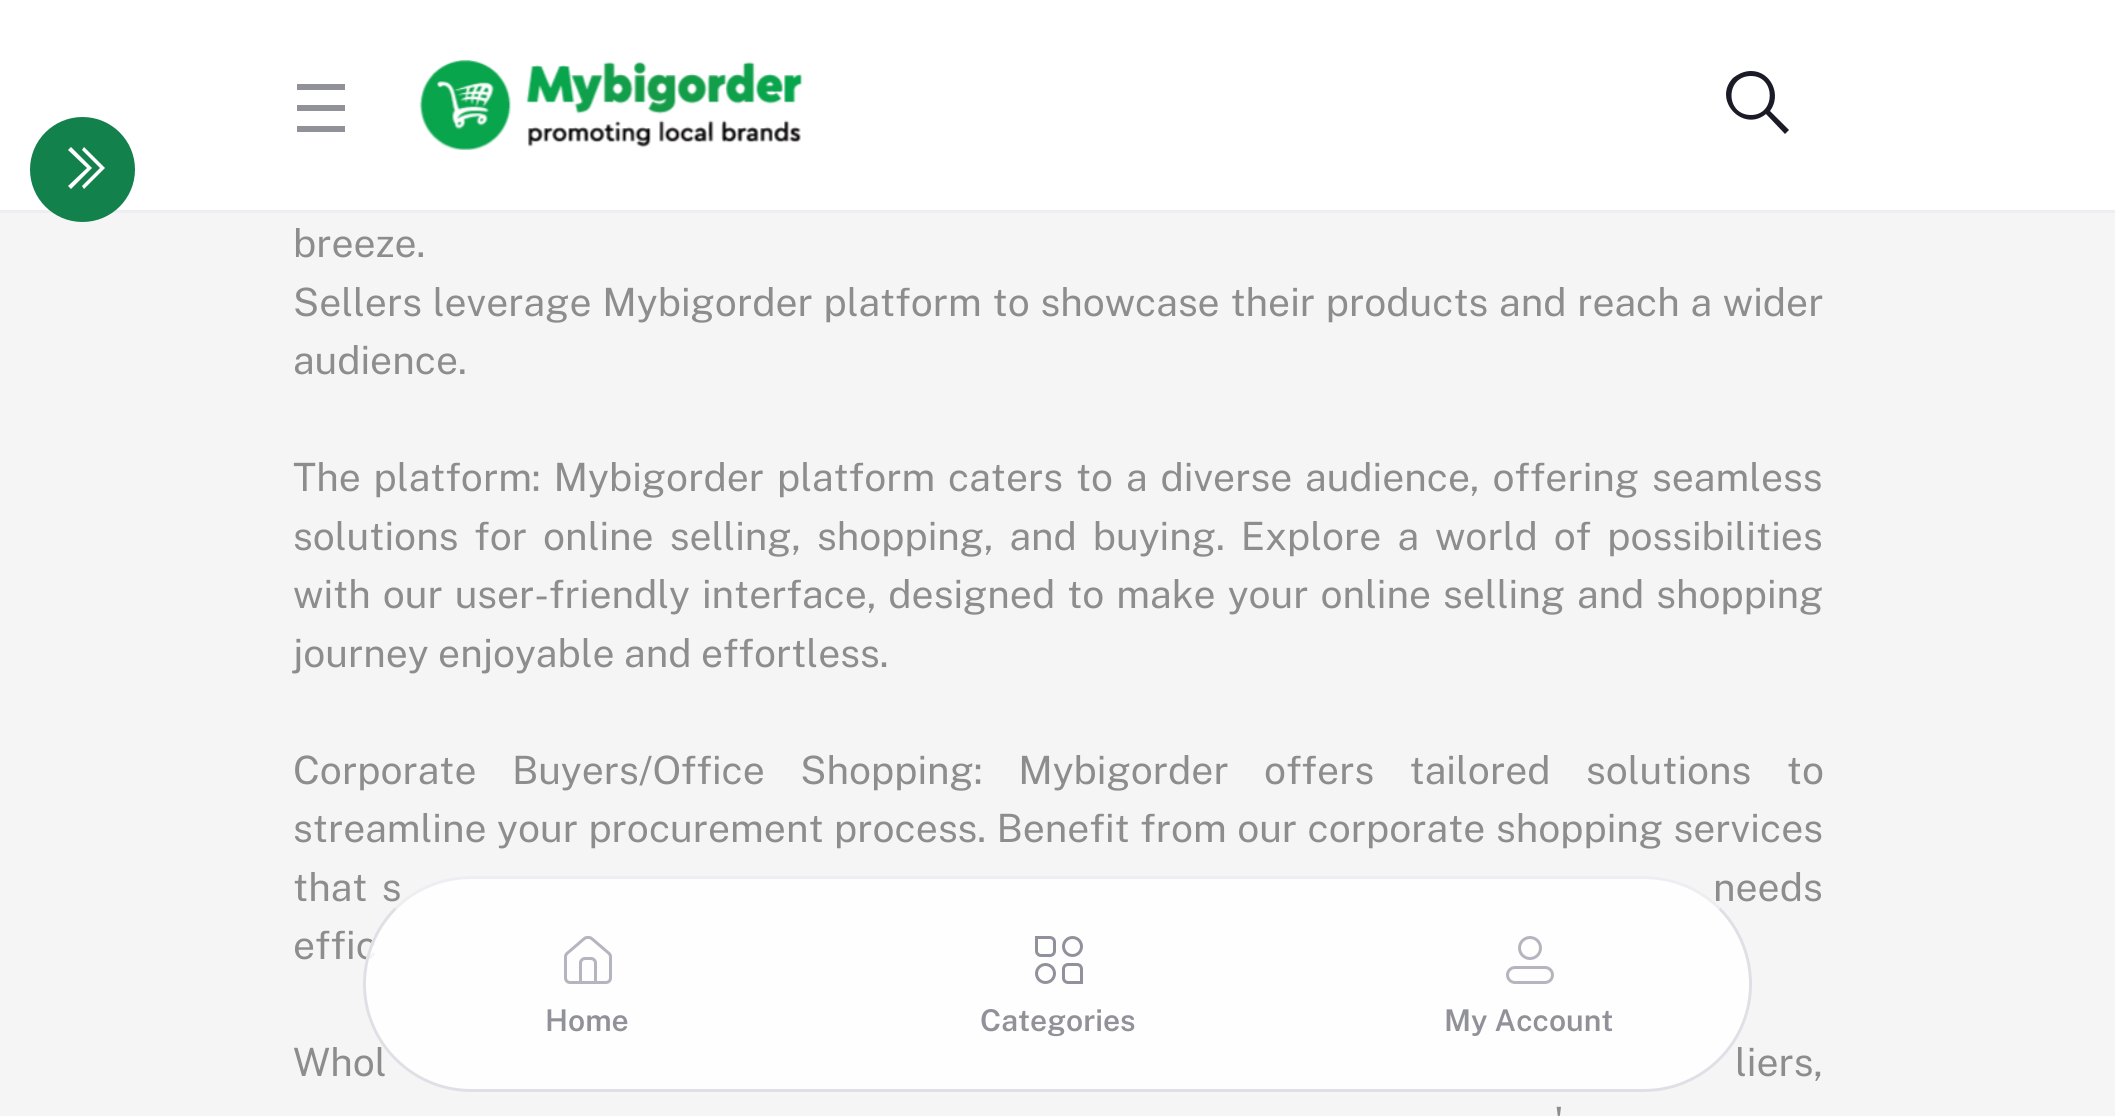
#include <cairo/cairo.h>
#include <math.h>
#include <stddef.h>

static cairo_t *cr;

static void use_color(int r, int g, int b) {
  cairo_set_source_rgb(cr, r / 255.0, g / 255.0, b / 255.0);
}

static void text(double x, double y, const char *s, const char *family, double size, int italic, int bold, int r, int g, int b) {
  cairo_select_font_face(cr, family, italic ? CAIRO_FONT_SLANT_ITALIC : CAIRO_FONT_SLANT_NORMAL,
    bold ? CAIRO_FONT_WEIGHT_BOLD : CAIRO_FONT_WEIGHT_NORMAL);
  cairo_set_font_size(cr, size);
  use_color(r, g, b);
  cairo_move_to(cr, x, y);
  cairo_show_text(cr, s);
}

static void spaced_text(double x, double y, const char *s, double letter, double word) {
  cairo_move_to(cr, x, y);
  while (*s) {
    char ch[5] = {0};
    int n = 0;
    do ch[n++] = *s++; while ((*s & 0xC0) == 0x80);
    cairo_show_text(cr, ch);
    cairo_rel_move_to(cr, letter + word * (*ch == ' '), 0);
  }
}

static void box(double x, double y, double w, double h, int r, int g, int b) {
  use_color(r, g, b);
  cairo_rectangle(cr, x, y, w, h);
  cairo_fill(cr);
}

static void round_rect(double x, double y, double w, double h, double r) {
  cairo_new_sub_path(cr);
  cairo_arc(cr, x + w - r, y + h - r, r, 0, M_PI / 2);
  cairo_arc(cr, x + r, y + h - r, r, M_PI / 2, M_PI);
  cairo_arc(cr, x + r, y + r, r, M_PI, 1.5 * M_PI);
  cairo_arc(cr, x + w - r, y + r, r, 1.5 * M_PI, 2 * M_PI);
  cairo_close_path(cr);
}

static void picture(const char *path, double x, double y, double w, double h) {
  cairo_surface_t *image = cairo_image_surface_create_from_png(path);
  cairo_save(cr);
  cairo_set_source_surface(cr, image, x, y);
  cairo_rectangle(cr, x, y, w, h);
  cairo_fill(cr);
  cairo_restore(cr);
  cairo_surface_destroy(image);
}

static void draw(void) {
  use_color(245, 245, 245);
  cairo_paint(cr);
  box(0, 0, 2115, 210, 255, 255, 255);
  box(0, 210, 2115, 3, 237, 237, 242);
  use_color(19, 129, 76);
  cairo_arc(cr, 82.5, 169.5, 52.5, 0, 2 * M_PI);
  cairo_fill(cr);
  use_color(255, 255, 255);
  cairo_new_path(cr);
  cairo_move_to(cr, 71, 147);
  cairo_line_to(cr, 68, 150);
  cairo_line_to(cr, 87, 168);
  cairo_line_to(cr, 68, 186);
  cairo_line_to(cr, 71, 189);
  cairo_line_to(cr, 92, 168);
  cairo_close_path(cr);
  cairo_move_to(cr, 84, 147);
  cairo_line_to(cr, 82, 150);
  cairo_line_to(cr, 100, 168);
  cairo_line_to(cr, 82, 186);
  cairo_line_to(cr, 84, 189);
  cairo_line_to(cr, 105, 168);
  cairo_close_path(cr);
  cairo_fill(cr);
  box(297, 84, 48, 6, 145, 145, 153);
  box(297, 105, 48, 6, 145, 145, 153);
  box(297, 126, 48, 6, 145, 145, 153);
  picture("img_01.png", 419, 60, 383, 90);
  use_color(27, 27, 40);
  cairo_new_path(cr);
  cairo_move_to(cr, 1751, 71);
  cairo_curve_to(cr, 1771, 71, 1782, 95, 1770, 111);
  cairo_line_to(cr, 1789, 130);
  cairo_line_to(cr, 1785, 134);
  cairo_line_to(cr, 1766, 114);
  cairo_curve_to(cr, 1743, 133, 1712, 100, 1733, 78);
  cairo_curve_to(cr, 1738, 74, 1744, 71, 1751, 71);
  cairo_close_path(cr);
  cairo_move_to(cr, 1751, 76);
  cairo_curve_to(cr, 1725, 76, 1725, 115, 1751, 115);
  cairo_curve_to(cr, 1776, 115, 1776, 76, 1751, 76);
  cairo_close_path(cr);
  cairo_fill(cr);
  text(293, 257, "breeze.", "Public Sans", 39, 0, 0, 141, 141, 141);
  spaced_text(293, 316, "Sellers leverage Mybigorder platform to showcase their products and reach a wider", 0, 1.25);
  text(293, 374, "audience.", "Public Sans", 39, 0, 0, 141, 141, 141);
  spaced_text(293, 491, "The platform: Mybigorder platform caters to a diverse audience, offering seamless", 0, 3.4);
  spaced_text(293, 550, "solutions for online selling, shopping, and buying. Explore a world of possibilities", 0, 6.5);
  spaced_text(293, 608, "with our user-friendly interface, designed to make your online selling and shopping", 0, 2.5);
  text(293, 667, "journey enjoyable and effortless.", "Public Sans", 39, 0, 0, 141, 141, 141);
  spaced_text(293, 784, "Corporate Buyers/Office Shopping: Mybigorder offers tailored solutions to", 0, 26);
  spaced_text(293, 842, "streamline your procurement process. Benefit from our corporate shopping services", 0, 1);
  spaced_text(293, 901, "that s", 0, 5);
  spaced_text(1713, 901, "needs", 0, 5);
  text(293, 959, "effic", "Public Sans", 39, 0, 0, 141, 141, 141);
  spaced_text(293, 1076, "Whol", 0, 5);
  spaced_text(1735, 1076, "liers,", 0, 5);
  text(1554, 1135, "'", "Public Sans", 39, 0, 0, 141, 141, 141);
  cairo_set_source_rgba(cr, 1, 1, 1, 0.9);
  round_rect(363, 876, 1389, 216, 108);
  cairo_fill(cr);
  cairo_new_path(cr);
  cairo_move_to(cr, 395.5, 908.5);
  cairo_curve_to(cr, 415.5, 888.5, 443, 877.5, 471, 877.5);
  cairo_line_to(cr, 1644, 877.5);
  cairo_curve_to(cr, 1672, 877.5, 1699.5, 888.5, 1719.5, 908.5);
  use_color(237, 237, 242);
  cairo_set_line_width(cr, 3);
  cairo_stroke(cr);
  cairo_new_path(cr);
  cairo_move_to(cr, 1719.5, 908.5);
  cairo_curve_to(cr, 1744.5, 933.5, 1755.5, 970.5, 1748.5, 1005);
  cairo_curve_to(cr, 1738.5, 1054.5, 1694.5, 1090.5, 1644, 1090.5);
  cairo_line_to(cr, 471, 1090.5);
  cairo_curve_to(cr, 420.5, 1090.5, 376.5, 1054.5, 366.5, 1005);
  cairo_curve_to(cr, 359.5, 970.5, 370.5, 933.5, 395.5, 908.5);
  use_color(223, 223, 230);
  cairo_stroke(cr);
  picture("img_02.png", 564, 936, 48, 48);
  text(545, 1031, "Home", "Public Sans SemiBold", 30, 0, 0, 145, 145, 153);
  picture("img_03.png", 1035, 936, 48, 48);
  text(980, 1031, "Categories", "Public Sans SemiBold", 30, 0, 0, 145, 145, 153);
  picture("img_04.png", 1506, 936, 48, 48);
  text(1444, 1031, "My Account", "Public Sans SemiBold", 30, 0, 0, 145, 145, 153);
}

int main(void) {
  cairo_surface_t *surface = cairo_image_surface_create(CAIRO_FORMAT_RGB24, 2115, 1116);
  cr = cairo_create(surface);
  cairo_font_options_t *options = cairo_font_options_create();
  cairo_font_options_set_hint_metrics(options, CAIRO_HINT_METRICS_OFF);
  cairo_font_options_set_hint_style(options, CAIRO_HINT_STYLE_NONE);
  cairo_set_font_options(cr, options);
  cairo_set_miter_limit(cr, 4);
  draw();
  cairo_surface_write_to_png(surface, "out.png");
  cairo_font_options_destroy(options);
  cairo_destroy(cr);
  cairo_surface_destroy(surface);
  return 0;
}
